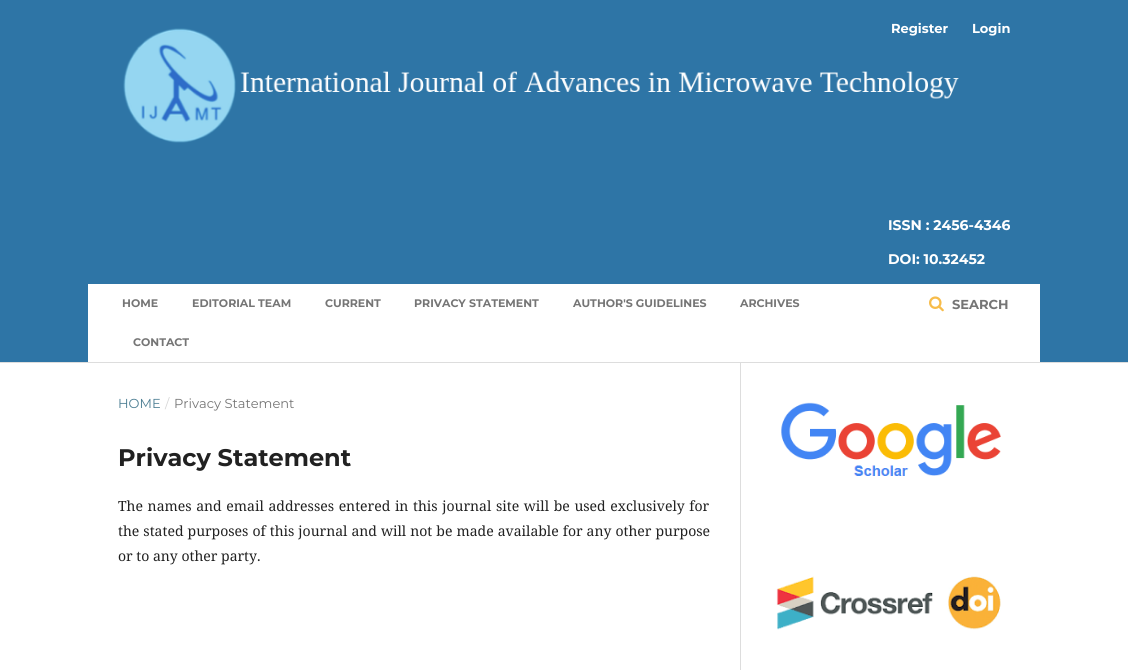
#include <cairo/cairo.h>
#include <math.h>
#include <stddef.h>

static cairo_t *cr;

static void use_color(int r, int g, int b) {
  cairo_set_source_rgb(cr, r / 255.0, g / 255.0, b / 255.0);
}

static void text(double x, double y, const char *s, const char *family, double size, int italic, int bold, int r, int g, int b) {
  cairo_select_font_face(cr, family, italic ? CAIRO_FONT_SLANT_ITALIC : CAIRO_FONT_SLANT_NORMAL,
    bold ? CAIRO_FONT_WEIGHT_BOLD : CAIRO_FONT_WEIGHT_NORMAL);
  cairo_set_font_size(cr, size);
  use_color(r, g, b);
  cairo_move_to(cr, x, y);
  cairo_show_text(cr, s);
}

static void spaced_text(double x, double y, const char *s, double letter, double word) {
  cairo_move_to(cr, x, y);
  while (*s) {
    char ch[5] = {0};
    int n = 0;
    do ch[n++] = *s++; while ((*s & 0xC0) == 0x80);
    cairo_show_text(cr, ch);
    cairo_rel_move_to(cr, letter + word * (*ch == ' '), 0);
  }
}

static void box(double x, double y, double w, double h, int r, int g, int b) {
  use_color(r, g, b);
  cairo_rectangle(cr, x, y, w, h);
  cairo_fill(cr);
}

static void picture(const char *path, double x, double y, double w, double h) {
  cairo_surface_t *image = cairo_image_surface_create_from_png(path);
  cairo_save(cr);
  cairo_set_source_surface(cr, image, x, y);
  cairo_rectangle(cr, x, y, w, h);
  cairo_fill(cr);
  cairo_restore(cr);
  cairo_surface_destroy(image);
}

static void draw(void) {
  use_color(255, 255, 255);
  cairo_paint(cr);
  box(0, 0, 1128, 362, 46, 117, 166);
  box(0, 362, 1128, 1, 221, 221, 221);
  box(88, 284, 952, 78, 255, 255, 255);
  picture("img_01.png", 929, 296, 15, 16);
  picture("img_02.png", 123, 28, 836, 115);
  box(740, 363, 1, 307, 221, 221, 221);
  picture("img_03.png", 781, 402, 220, 74);
  picture("img_04.png", 776, 576, 225, 54);
  text(891, 33, "Register", "Montserrat", 13, 0, 1, 255, 255, 255);
  text(972, 33, "Login", "Montserrat", 13, 0, 1, 255, 255, 255);
  text(122, 307, "HOME", "Montserrat", 11, 0, 1, 117, 117, 117);
  text(192, 307, "EDITORIAL TEAM", "Montserrat", 11, 0, 1, 117, 117, 117);
  text(325, 307, "CURRENT", "Montserrat", 11, 0, 1, 117, 117, 117);
  text(414, 307, "PRIVACY STATEMENT", "Montserrat", 11, 0, 1, 117, 117, 117);
  text(573, 307, "AUTHOR'S GUIDELINES", "Montserrat", 11, 0, 1, 117, 117, 117);
  text(740, 307, "ARCHIVES", "Montserrat", 11, 0, 1, 117, 117, 117);
  text(133, 346, "CONTACT", "Montserrat", 11, 0, 1, 117, 117, 117);
  text(952, 309, "SEARCH", "Montserrat", 13, 0, 1, 117, 117, 117);
  text(888, 230, "ISSN : 2456-4346", "Montserrat", 14, 0, 1, 255, 255, 255);
  text(888, 264, "DOI: 10.32452", "Montserrat", 14, 0, 1, 255, 255, 255);
  text(118, 408, "HOME", "Montserrat", 13, 0, 0, 75, 125, 146);
  text(165, 408, "/", "Montserrat", 13, 0, 0, 214, 214, 214);
  text(174, 408, "Privacy Statement", "Montserrat", 13, 0, 0, 117, 117, 117);
  text(118, 466, "Privacy Statement", "Montserrat", 24, 0, 1, 33, 33, 33);
  cairo_select_font_face(cr, "Noto Serif", CAIRO_FONT_SLANT_NORMAL, CAIRO_FONT_WEIGHT_NORMAL);
  cairo_set_font_size(cr, 14);
  spaced_text(118, 511, "The names and email addresses entered in this journal site will be used exclusively for", 0, 1);
  spaced_text(118, 536, "the stated purposes of this journal and will not be made available for any other purpose", 0, 0.4);
  text(118, 561, "or to any other party.", "Noto Serif", 14, 0, 0, 33, 33, 33);
}

int main(void) {
  cairo_surface_t *surface = cairo_image_surface_create(CAIRO_FORMAT_RGB24, 1128, 670);
  cr = cairo_create(surface);
  cairo_font_options_t *options = cairo_font_options_create();
  cairo_font_options_set_hint_metrics(options, CAIRO_HINT_METRICS_OFF);
  cairo_font_options_set_hint_style(options, CAIRO_HINT_STYLE_NONE);
  cairo_set_font_options(cr, options);
  cairo_set_miter_limit(cr, 4);
  draw();
  cairo_surface_write_to_png(surface, "out.png");
  cairo_font_options_destroy(options);
  cairo_destroy(cr);
  cairo_surface_destroy(surface);
  return 0;
}
